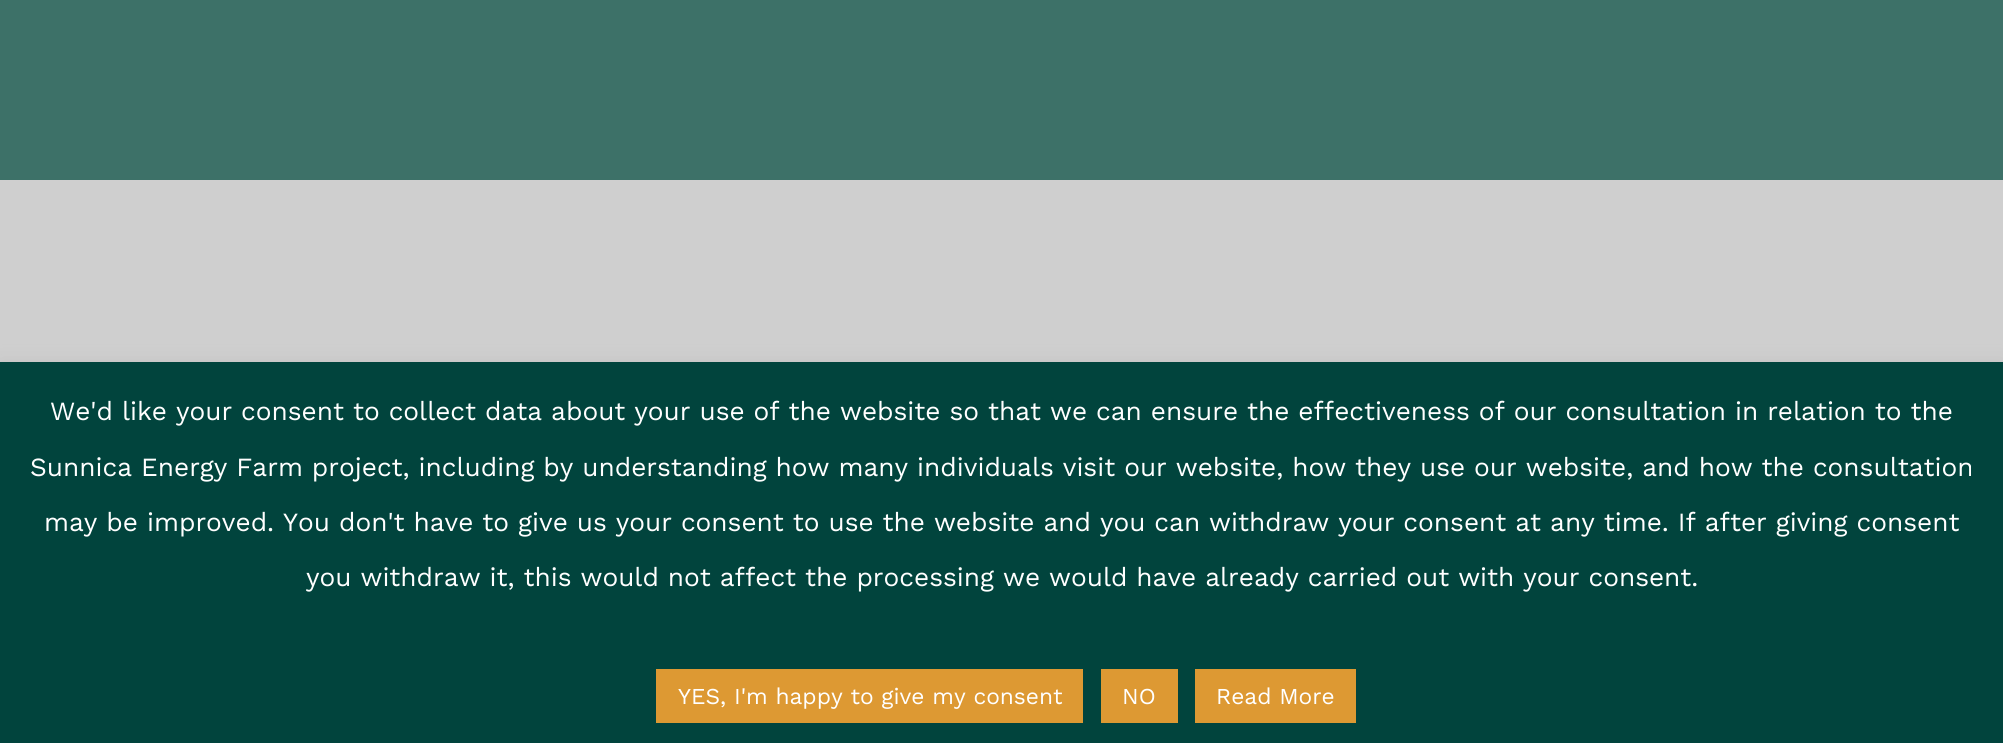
#include <cairo/cairo.h>
#include <math.h>
#include <stddef.h>

static cairo_t *cr;

static void use_color(int r, int g, int b) {
  cairo_set_source_rgb(cr, r / 255.0, g / 255.0, b / 255.0);
}

static void text(double x, double y, const char *s, const char *family, double size, int italic, int bold, int r, int g, int b) {
  cairo_select_font_face(cr, family, italic ? CAIRO_FONT_SLANT_ITALIC : CAIRO_FONT_SLANT_NORMAL,
    bold ? CAIRO_FONT_WEIGHT_BOLD : CAIRO_FONT_WEIGHT_NORMAL);
  cairo_set_font_size(cr, size);
  use_color(r, g, b);
  cairo_move_to(cr, x, y);
  cairo_show_text(cr, s);
}

static void box(double x, double y, double w, double h, int r, int g, int b) {
  use_color(r, g, b);
  cairo_rectangle(cr, x, y, w, h);
  cairo_fill(cr);
}

static void round_rect(double x, double y, double w, double h, double r) {
  cairo_new_sub_path(cr);
  cairo_arc(cr, x + w - r, y + h - r, r, 0, M_PI / 2);
  cairo_arc(cr, x + r, y + h - r, r, M_PI / 2, M_PI);
  cairo_arc(cr, x + r, y + r, r, M_PI, 1.5 * M_PI);
  cairo_arc(cr, x + w - r, y + r, r, 1.5 * M_PI, 2 * M_PI);
  cairo_close_path(cr);
}

static void shadow(double x, double y, double w, double h, double r, double blur, double alpha) {
  cairo_push_group_with_content(cr, CAIRO_CONTENT_ALPHA);
  cairo_set_operator(cr, CAIRO_OPERATOR_SOURCE);
  for (int i = 15; i >= -15 && fmin(w, h) + blur * i / 3 > 0; i -= 2) {
    double e = blur * i / 6;
    cairo_set_source_rgba(cr, 0, 0, 0, alpha * erfc((i - 1) / 8.5) / 2);
    round_rect(x - e, y - e, w + 2 * e, h + 2 * e, fmax(0, fmin(r + e + blur * .6, fmin(w, h) / 2 + e)));
    cairo_fill(cr);
  }
  cairo_pattern_t *soft = cairo_pop_group(cr);
  cairo_mask(cr, soft);
  cairo_pattern_destroy(soft);
}

static void draw(void) {
  use_color(207, 207, 207);
  cairo_paint(cr);
  box(0, 0, 2003, 180, 61, 113, 104);
  use_color(172, 171, 171);
  shadow(0, 361, 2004, 381, 0, 9, 0.3);
  box(0, 362, 2003, 381, 1, 68, 61);
  box(656, 669, 427, 54, 221, 153, 51);
  box(1101, 669, 77, 54, 221, 153, 51);
  box(1195, 669, 161, 54, 221, 153, 51);
  text(50, 420, "We'd like your consent to collect data about your use of the website so that we can ensure the effectiveness of our consultation in relation to the", "Work Sans", 26.25, 0, 0, 255, 255, 255);
  text(30, 476, "Sunnica Energy Farm project, including by understanding how many individuals visit our website, how they use our website, and how the consultation", "Work Sans", 26.25, 0, 0, 255, 255, 255);
  text(44, 531, "may be improved. You don't have to give us your consent to use the website and you can withdraw your consent at any time. If after giving consent", "Work Sans", 26.25, 0, 0, 255, 255, 255);
  text(306, 586, "you withdraw it, this would not affect the processing we would have already carried out with your consent.", "Work Sans", 26.25, 0, 0, 255, 255, 255);
  text(678, 704, "YES, I'm happy to give my consent", "Work Sans", 22.75, 0, 0, 255, 255, 255);
  text(1122, 704, "NO", "Work Sans", 22.75, 0, 0, 255, 255, 255);
  text(1216, 704, "Read More", "Work Sans", 22.75, 0, 0, 255, 255, 255);
}

int main(void) {
  cairo_surface_t *surface = cairo_image_surface_create(CAIRO_FORMAT_RGB24, 2003, 743);
  cr = cairo_create(surface);
  cairo_font_options_t *options = cairo_font_options_create();
  cairo_font_options_set_hint_metrics(options, CAIRO_HINT_METRICS_OFF);
  cairo_font_options_set_hint_style(options, CAIRO_HINT_STYLE_NONE);
  cairo_set_font_options(cr, options);
  cairo_set_miter_limit(cr, 4);
  draw();
  cairo_surface_write_to_png(surface, "out.png");
  cairo_font_options_destroy(options);
  cairo_destroy(cr);
  cairo_surface_destroy(surface);
  return 0;
}
